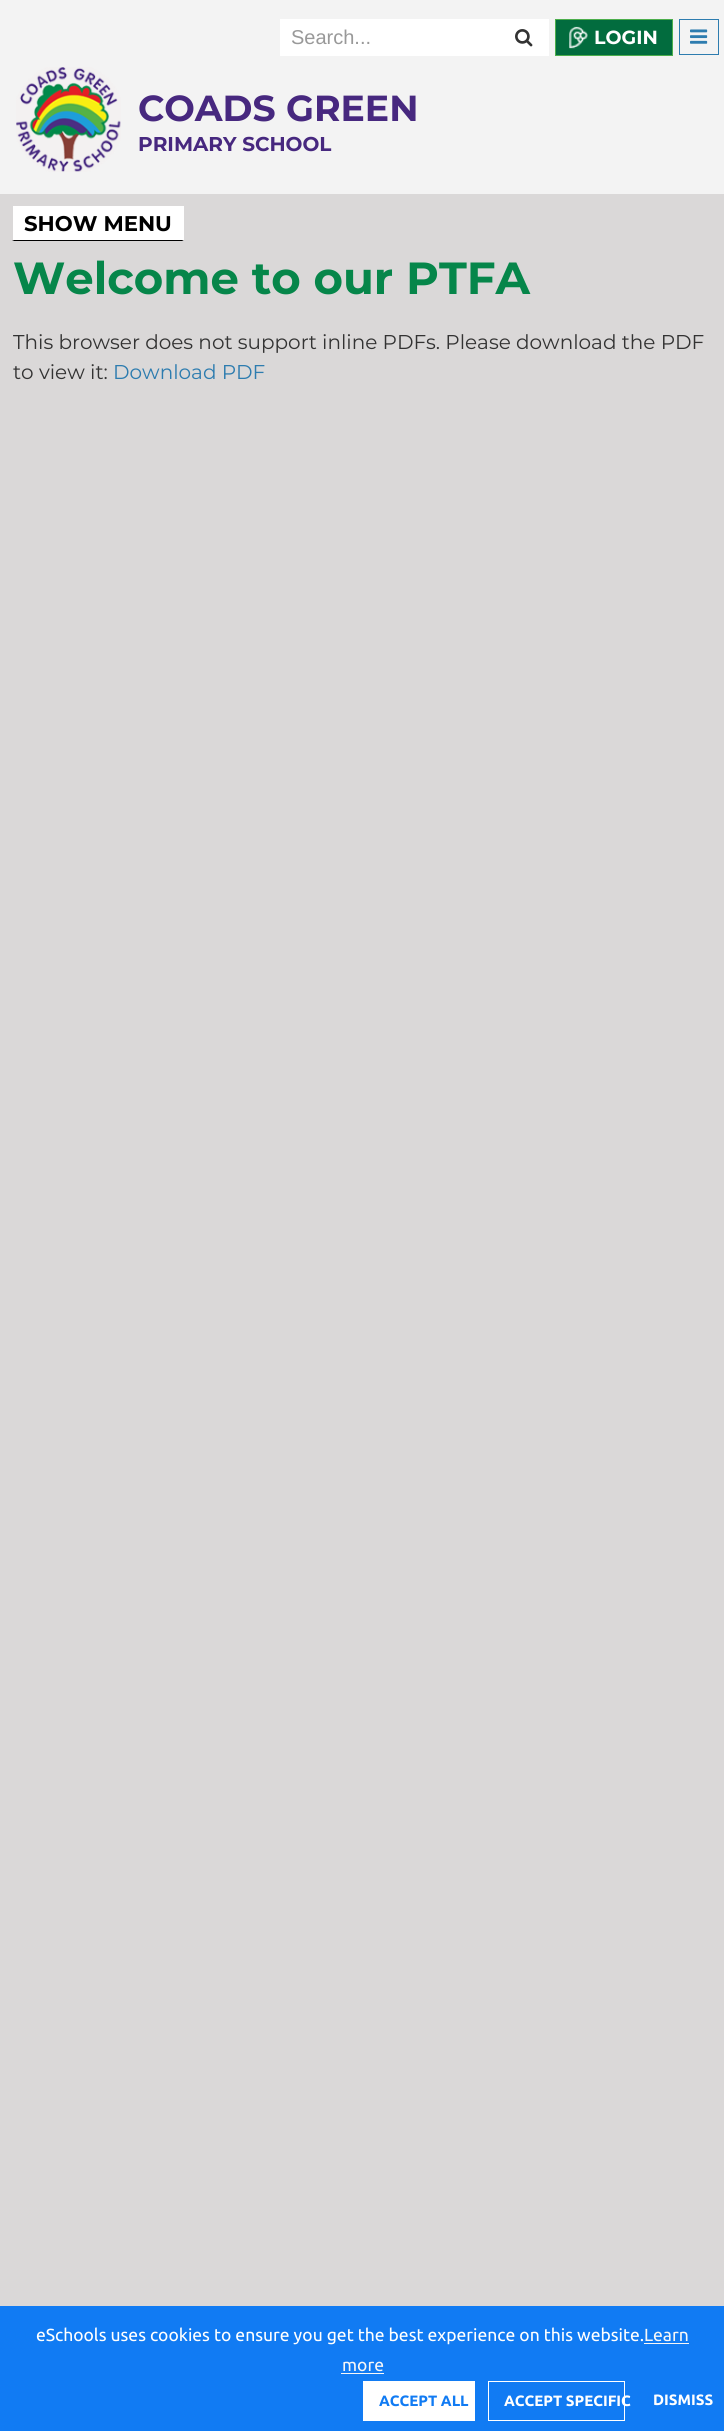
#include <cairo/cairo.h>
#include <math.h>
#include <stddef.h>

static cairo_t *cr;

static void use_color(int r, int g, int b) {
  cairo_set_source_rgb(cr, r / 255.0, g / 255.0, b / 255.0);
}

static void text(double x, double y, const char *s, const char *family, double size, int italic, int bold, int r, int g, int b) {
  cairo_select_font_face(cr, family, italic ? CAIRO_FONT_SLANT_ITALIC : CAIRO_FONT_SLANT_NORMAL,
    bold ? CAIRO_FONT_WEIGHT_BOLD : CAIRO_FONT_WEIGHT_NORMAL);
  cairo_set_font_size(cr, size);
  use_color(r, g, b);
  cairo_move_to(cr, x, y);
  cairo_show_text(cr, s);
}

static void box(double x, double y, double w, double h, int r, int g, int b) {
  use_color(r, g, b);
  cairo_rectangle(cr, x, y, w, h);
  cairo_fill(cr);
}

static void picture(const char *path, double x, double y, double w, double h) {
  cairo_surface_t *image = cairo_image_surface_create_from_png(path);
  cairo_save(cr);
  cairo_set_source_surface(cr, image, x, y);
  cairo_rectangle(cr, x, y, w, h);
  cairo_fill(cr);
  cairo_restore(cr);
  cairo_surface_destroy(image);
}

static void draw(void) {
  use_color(218, 216, 216);
  cairo_paint(cr);
  box(0, 0, 724, 194, 243, 243, 243);
  box(280, 19, 269, 37, 255, 255, 255);
  picture("img_01.png", 515, 29, 18, 18);
  box(556, 20, 116, 35, 2, 108, 62);
  picture("img_02.png", 569, 26, 19, 23);
  cairo_rectangle(cr, 555.5, 19.5, 117, 36);
  use_color(76, 174, 76);
  cairo_set_line_width(cr, 1);
  cairo_stroke(cr);
  cairo_rectangle(cr, 679.5, 19.5, 39, 35);
  use_color(45, 124, 175);
  cairo_stroke(cr);
  picture("img_03.png", 690, 29, 18, 15);
  picture("img_04.png", 16, 67, 105, 105);
  box(13, 206, 171, 35, 255, 255, 255);
  use_color(0, 0, 0);
  cairo_new_path(cr);
  cairo_move_to(cr, 184, 241);
  cairo_line_to(cr, 12, 241);
  cairo_line_to(cr, 14, 240);
  cairo_line_to(cr, 182, 240);
  cairo_close_path(cr);
  cairo_fill(cr);
  box(0, 2306, 724, 125, 17, 123, 243);
  box(644, 2343, 45, 1, 247, 247, 247);
  box(341, 2373, 43, 1, 247, 247, 247);
  box(363, 2381, 112, 40, 255, 255, 255);
  cairo_rectangle(cr, 488.5, 2381.5, 136, 39);
  cairo_stroke(cr);
  text(291, 44, "Search...", "Liberation Sans", 20, 0, 0, 153, 153, 153);
  text(594, 44, "LOGIN", "Montserrat", 19, 0, 1, 255, 255, 255);
  text(138, 121, "COADS GREEN", "Montserrat", 36.25, 0, 1, 71, 40, 127);
  text(138, 151, "PRIMARY SCHOOL", "Montserrat", 20, 0, 1, 71, 40, 127);
  text(24, 231, "SHOW MENU", "Montserrat", 21.25, 0, 1, 0, 0, 0);
  text(13, 294, "Welcome to our PTFA", "Montserrat", 45, 0, 1, 6, 134, 74);
  text(13, 349, "This browser does not support inline PDFs. Please download the PDF", "Montserrat", 20, 0, 0, 51, 51, 51);
  text(13, 379, "to view it:", "Montserrat", 20, 0, 0, 51, 51, 51);
  text(113, 379, "Download PDF", "Montserrat", 20, 0, 0, 45, 124, 175);
  text(36, 2341, "eSchools uses cookies to ensure you get the best experience on this website.", "Ubuntu", 17.5, 0, 0, 255, 255, 255);
  text(644, 2341, "Learn", "Ubuntu", 17.5, 0, 0, 247, 247, 247);
  text(342, 2371, "more", "Ubuntu", 17.5, 0, 0, 247, 247, 247);
  text(379, 2406, "ACCEPT ALL", "Ubuntu", 15, 0, 1, 17, 123, 243);
  text(504, 2406, "ACCEPT SPECIFIC", "Ubuntu", 15, 0, 1, 255, 255, 255);
  text(653, 2405, "DISMISS", "Ubuntu", 15, 0, 1, 255, 255, 255);
}

int main(void) {
  cairo_surface_t *surface = cairo_image_surface_create(CAIRO_FORMAT_RGB24, 724, 2431);
  cr = cairo_create(surface);
  cairo_font_options_t *options = cairo_font_options_create();
  cairo_font_options_set_hint_metrics(options, CAIRO_HINT_METRICS_OFF);
  cairo_font_options_set_hint_style(options, CAIRO_HINT_STYLE_NONE);
  cairo_set_font_options(cr, options);
  cairo_set_miter_limit(cr, 4);
  draw();
  cairo_surface_write_to_png(surface, "out.png");
  cairo_font_options_destroy(options);
  cairo_destroy(cr);
  cairo_surface_destroy(surface);
  return 0;
}
